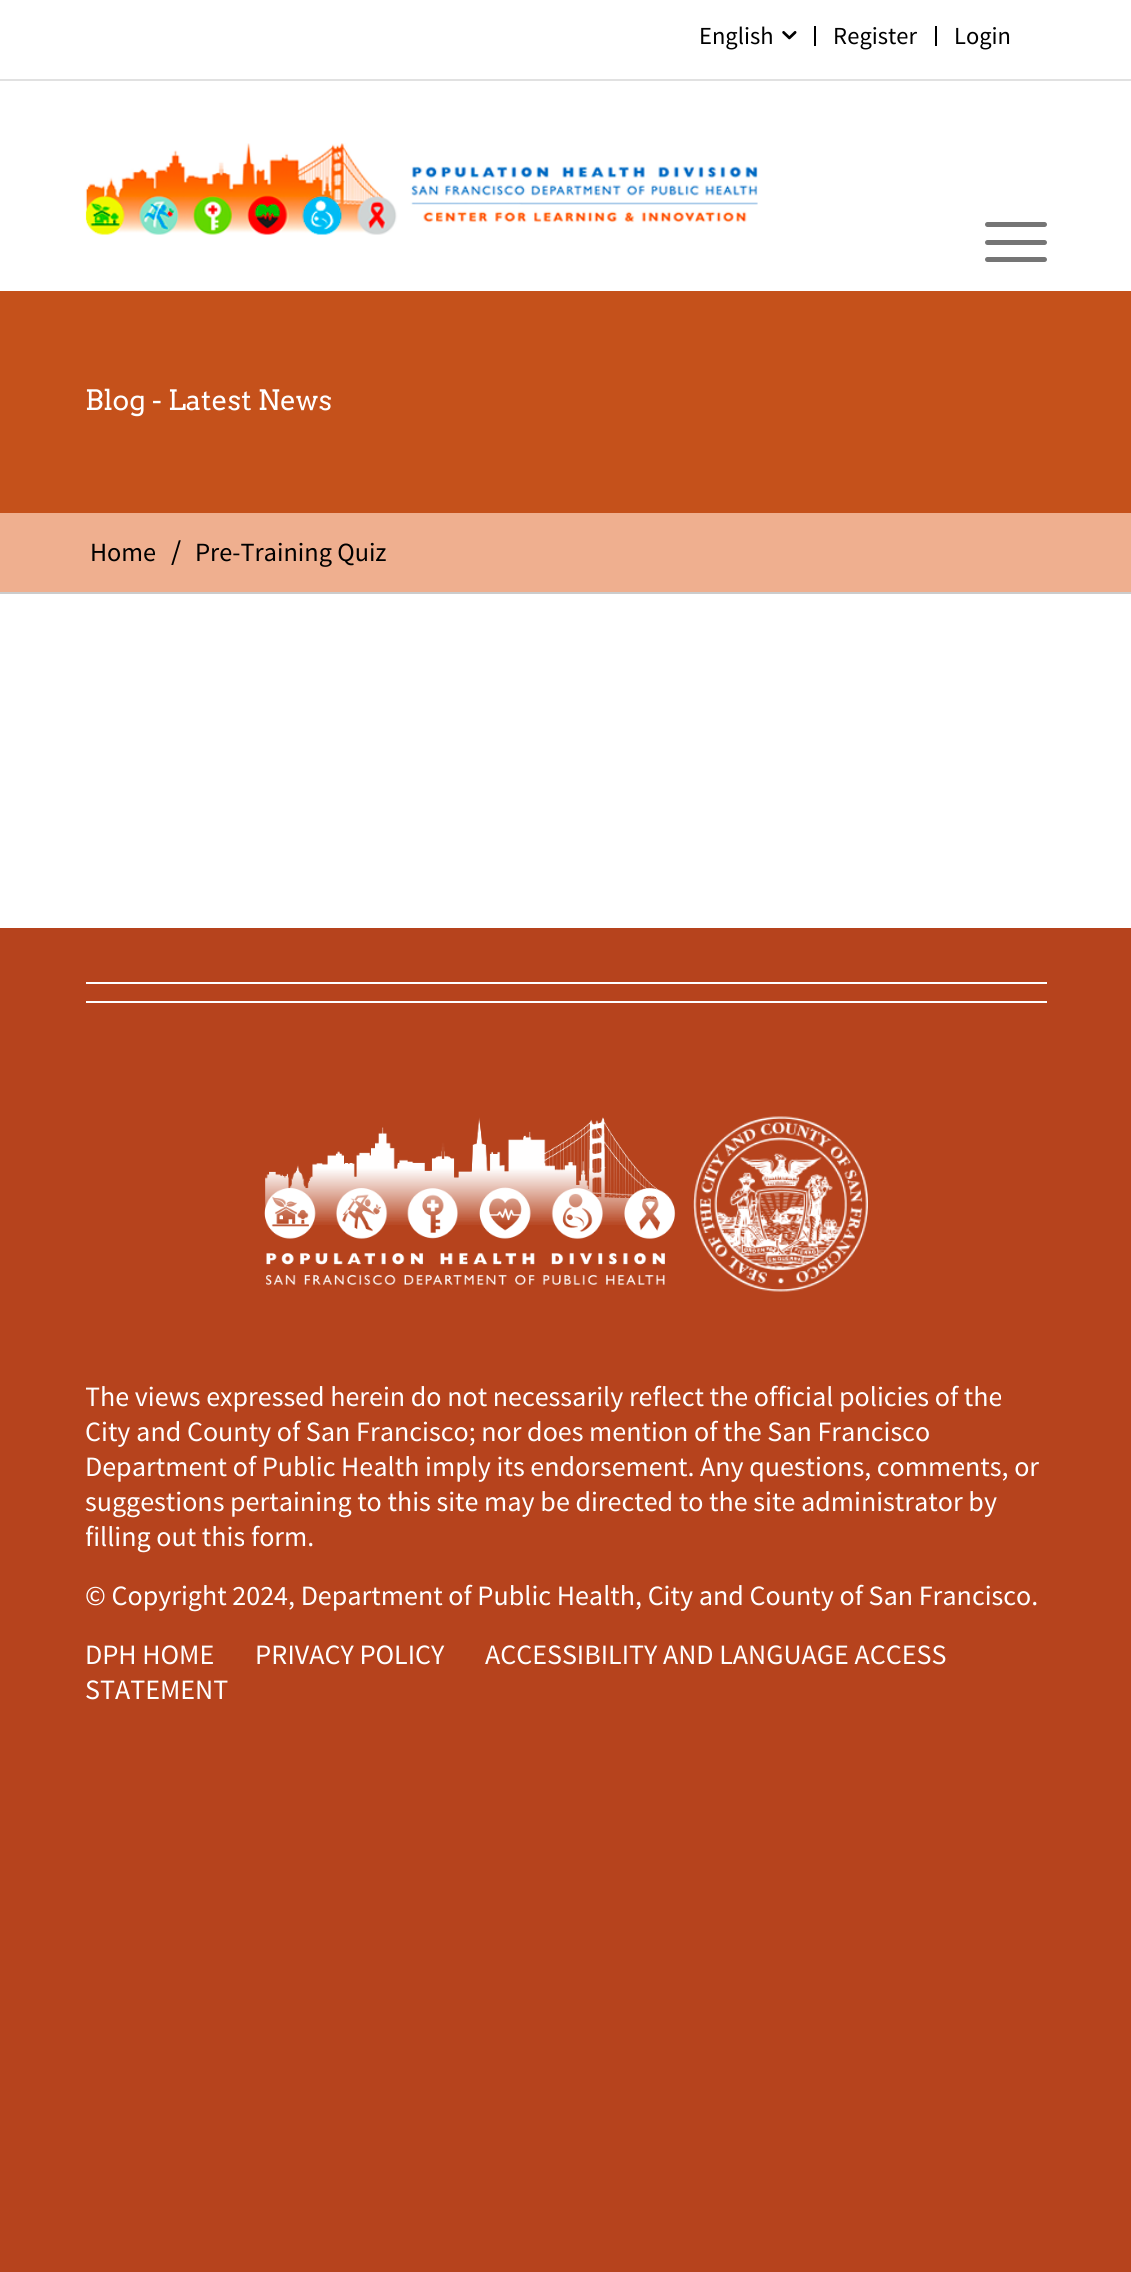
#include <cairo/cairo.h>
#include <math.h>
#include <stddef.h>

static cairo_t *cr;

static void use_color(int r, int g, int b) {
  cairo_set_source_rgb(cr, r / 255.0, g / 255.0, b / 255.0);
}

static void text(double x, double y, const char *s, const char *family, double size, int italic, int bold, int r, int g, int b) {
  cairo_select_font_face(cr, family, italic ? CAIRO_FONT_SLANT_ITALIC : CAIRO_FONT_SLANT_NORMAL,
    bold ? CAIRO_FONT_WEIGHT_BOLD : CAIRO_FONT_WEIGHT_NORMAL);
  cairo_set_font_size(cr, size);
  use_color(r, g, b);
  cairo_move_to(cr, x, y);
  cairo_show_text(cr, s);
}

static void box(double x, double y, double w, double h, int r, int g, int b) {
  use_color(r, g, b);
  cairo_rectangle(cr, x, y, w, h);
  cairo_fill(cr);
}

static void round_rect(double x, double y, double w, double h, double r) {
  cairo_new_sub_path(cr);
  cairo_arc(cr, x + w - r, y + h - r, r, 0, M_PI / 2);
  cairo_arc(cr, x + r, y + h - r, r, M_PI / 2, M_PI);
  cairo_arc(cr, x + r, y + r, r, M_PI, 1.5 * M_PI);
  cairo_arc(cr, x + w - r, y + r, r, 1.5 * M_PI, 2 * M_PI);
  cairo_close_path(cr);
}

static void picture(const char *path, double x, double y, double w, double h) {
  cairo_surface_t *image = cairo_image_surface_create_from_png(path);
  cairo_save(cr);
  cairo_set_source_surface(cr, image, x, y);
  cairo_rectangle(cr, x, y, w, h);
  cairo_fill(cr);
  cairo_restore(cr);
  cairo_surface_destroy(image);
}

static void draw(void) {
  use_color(182, 67, 29);
  cairo_paint(cr);
  box(0, 0, 1131, 928, 255, 255, 255);
  box(0, 79, 1131, 2, 225, 225, 225);
  box(814, 26, 2, 20, 0, 0, 0);
  picture("img_01.png", 782, 31, 15, 9);
  box(935, 26, 2, 20, 0, 0, 0);
  picture("img_02.png", 85, 143, 673, 92);
  use_color(117, 117, 117);
  round_rect(985, 240, 62, 5, 2.5);
  cairo_fill(cr);
  round_rect(985, 222, 62, 5, 2.5);
  cairo_fill(cr);
  round_rect(985, 257, 62, 5, 2.5);
  cairo_fill(cr);
  box(0, 291, 1131, 222, 197, 81, 27);
  box(0, 513, 1131, 79, 239, 175, 143);
  box(0, 592, 1131, 2, 204, 204, 204);
  box(86, 982, 961, 2, 255, 255, 255);
  box(86, 1001, 961, 2, 255, 255, 255);
  picture("img_03.png", 264, 1117, 412, 168);
  picture("img_04.png", 693, 1116, 175, 176);
  text(699, 44, "English", "Source Sans Pro", 24.5, 0, 0, 0, 0, 0);
  text(833, 44, "Register", "Source Sans Pro", 24.5, 0, 0, 0, 0, 0);
  text(954, 44, "Login", "Source Sans Pro", 24.5, 0, 0, 0, 0, 0);
  text(85, 410, "Blog - Latest News", "Arvo", 28, 0, 0, 255, 255, 255);
  text(90, 561, "Home", "Source Sans Pro", 26.25, 0, 0, 0, 0, 0);
  cairo_save(cr);
  cairo_rectangle(cr, 161, 539, 28, 26);
  cairo_clip(cr);
  text(170, 563, "/", "Source Sans Pro", 32, 0, 0, 0, 0, 0);
  cairo_restore(cr);
  text(195, 561, "Pre-Training Quiz", "Source Sans Pro", 26.25, 0, 0, 0, 0, 0);
  cairo_save(cr);
  round_rect(86, 1064, 961, 700, 5);
  cairo_clip(cr);
  text(85, 1406, "The views expressed herein do not necessarily reflect the official policies of the", "Source Sans Pro", 28, 0, 0, 255, 255, 255);
  cairo_restore(cr);
  text(85, 1441, "City and County of San Francisco; nor does mention of the San Francisco", "Source Sans Pro", 28, 0, 0, 255, 255, 255);
  text(85, 1476, "Department of Public Health imply its endorsement. Any questions, comments, or", "Source Sans Pro", 28, 0, 0, 255, 255, 255);
  text(85, 1511, "suggestions pertaining to this site may be directed to the site administrator by", "Source Sans Pro", 28, 0, 0, 255, 255, 255);
  cairo_save(cr);
  round_rect(86, 1064, 961, 700, 5);
  cairo_clip(cr);
  text(85, 1546, "filling out this", "Source Sans Pro", 28, 0, 0, 255, 255, 255);
  cairo_restore(cr);
  text(251, 1546, "form.", "Source Sans Pro", 28, 0, 0, 255, 255, 255);
  text(85, 1605, "© Copyright 2024, Department of Public Health, City and County of San Francisco.", "Source Sans Pro", 28, 0, 0, 255, 255, 255);
  text(85, 1664, "DPH HOME", "Source Sans Pro", 28, 0, 0, 255, 255, 255);
  text(255, 1664, "PRIVACY POLICY", "Source Sans Pro", 28, 0, 0, 255, 255, 255);
  text(485, 1664, "ACCESSIBILITY AND LANGUAGE ACCESS", "Source Sans Pro", 28, 0, 0, 255, 255, 255);
  text(85, 1699, "STATEMENT", "Source Sans Pro", 28, 0, 0, 255, 255, 255);
}

int main(void) {
  cairo_surface_t *surface = cairo_image_surface_create(CAIRO_FORMAT_RGB24, 1131, 2272);
  cr = cairo_create(surface);
  cairo_font_options_t *options = cairo_font_options_create();
  cairo_font_options_set_hint_metrics(options, CAIRO_HINT_METRICS_OFF);
  cairo_font_options_set_hint_style(options, CAIRO_HINT_STYLE_NONE);
  cairo_set_font_options(cr, options);
  cairo_set_miter_limit(cr, 4);
  draw();
  cairo_surface_write_to_png(surface, "out.png");
  cairo_font_options_destroy(options);
  cairo_destroy(cr);
  cairo_surface_destroy(surface);
  return 0;
}
